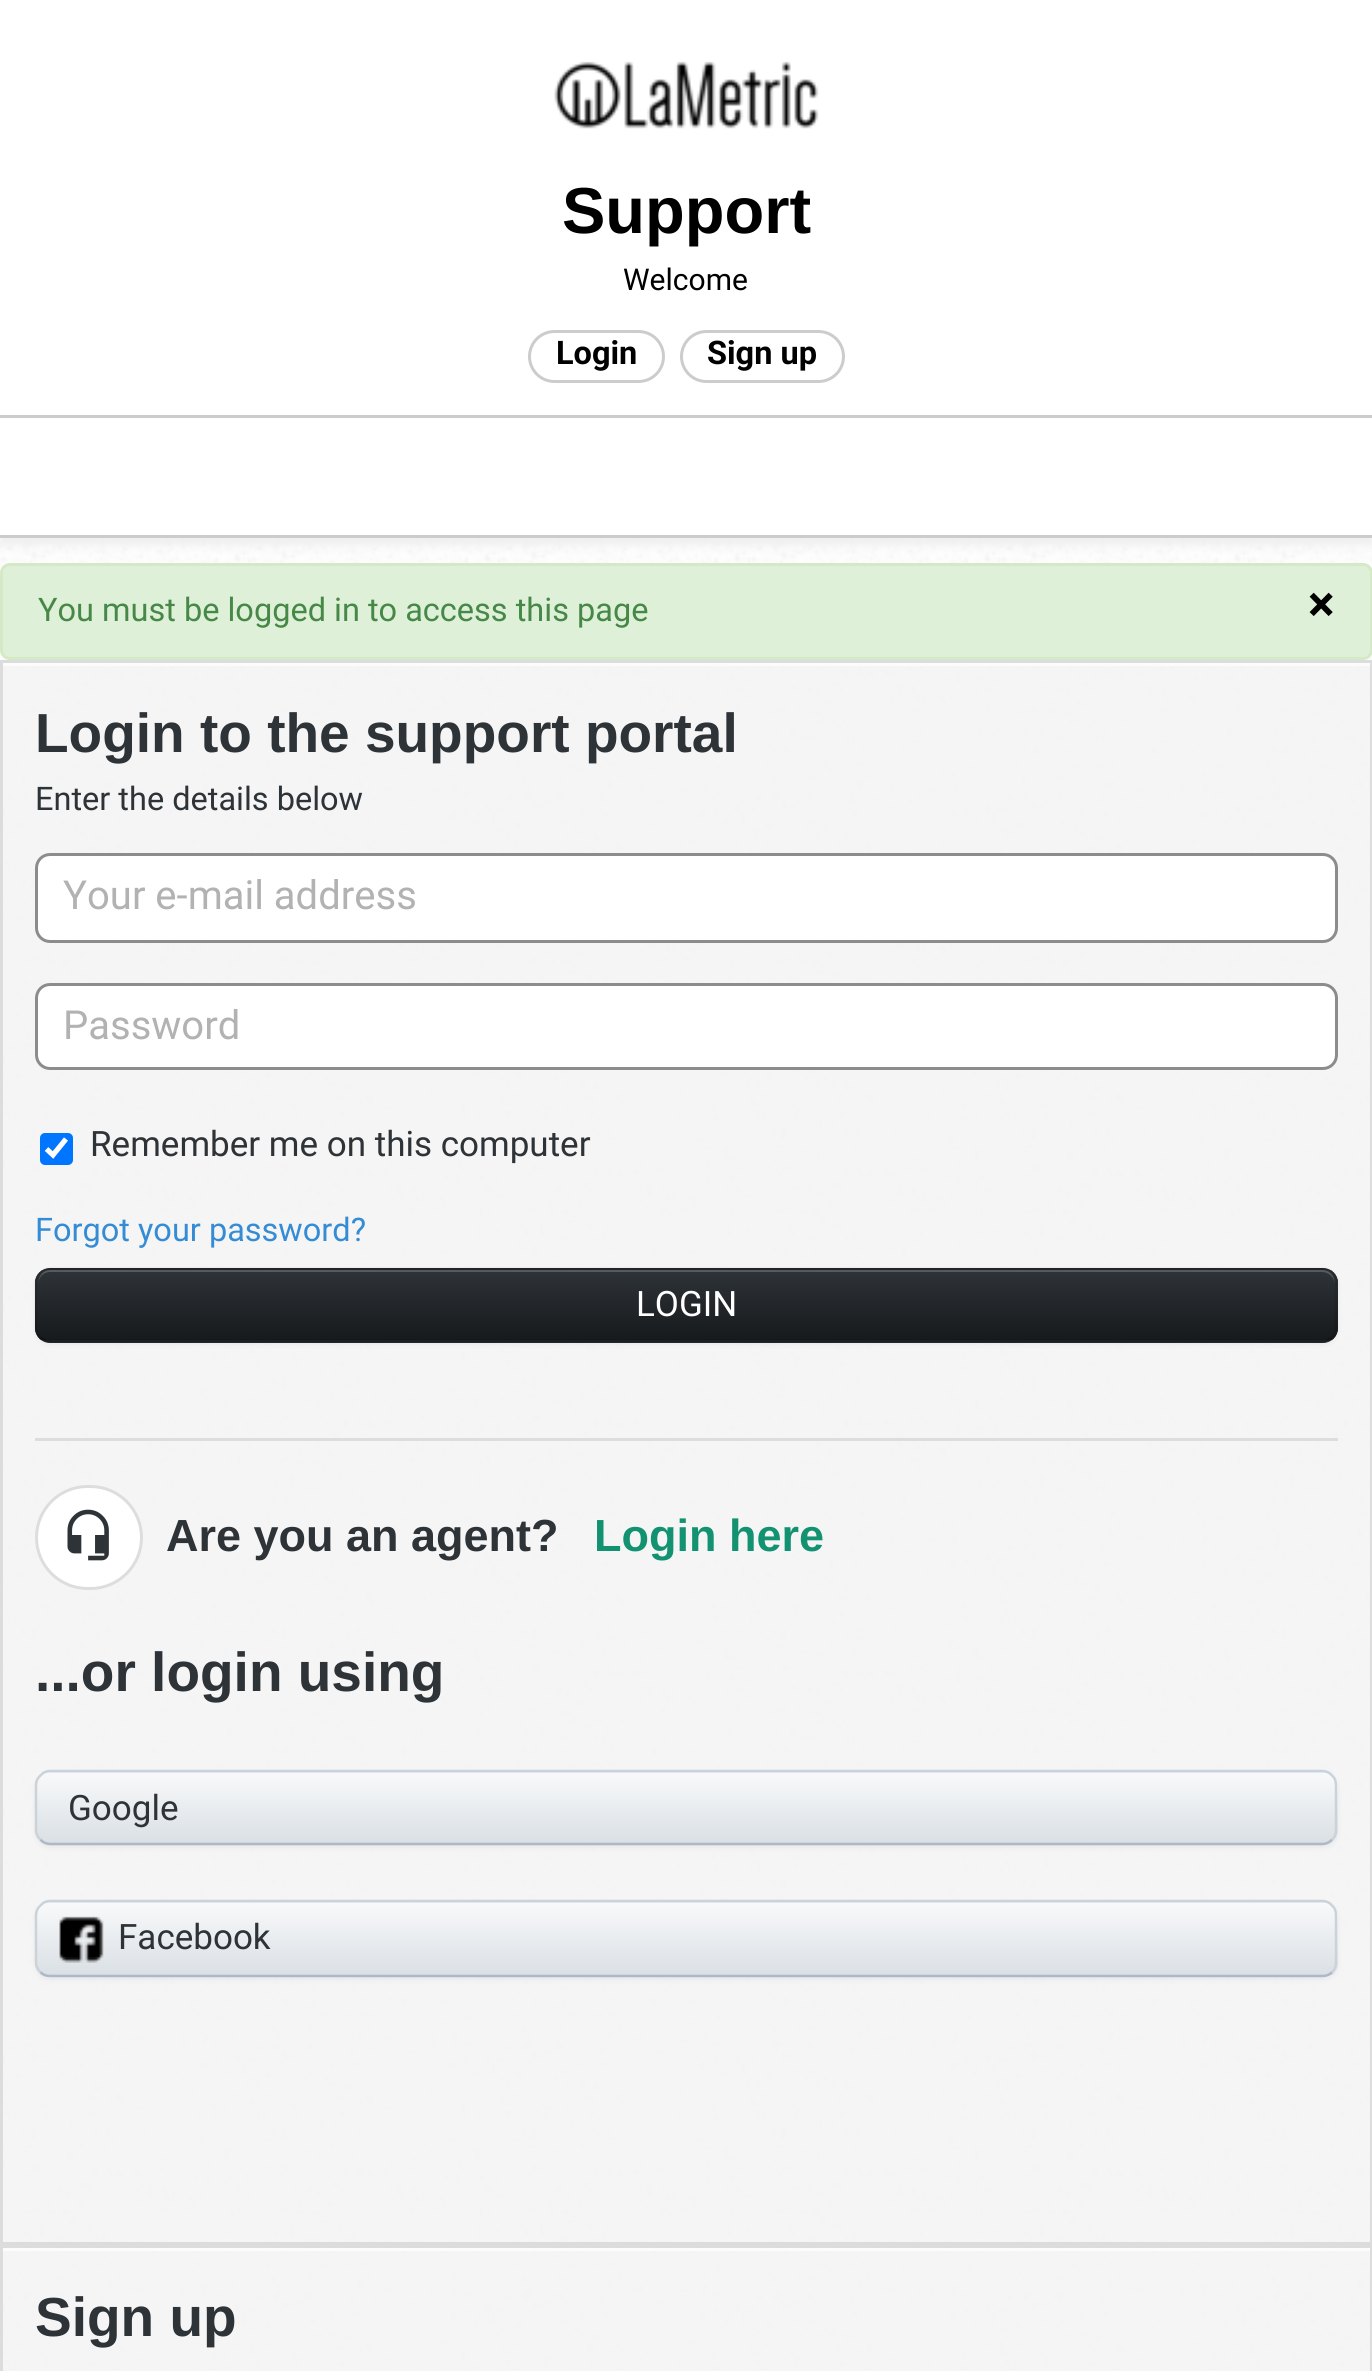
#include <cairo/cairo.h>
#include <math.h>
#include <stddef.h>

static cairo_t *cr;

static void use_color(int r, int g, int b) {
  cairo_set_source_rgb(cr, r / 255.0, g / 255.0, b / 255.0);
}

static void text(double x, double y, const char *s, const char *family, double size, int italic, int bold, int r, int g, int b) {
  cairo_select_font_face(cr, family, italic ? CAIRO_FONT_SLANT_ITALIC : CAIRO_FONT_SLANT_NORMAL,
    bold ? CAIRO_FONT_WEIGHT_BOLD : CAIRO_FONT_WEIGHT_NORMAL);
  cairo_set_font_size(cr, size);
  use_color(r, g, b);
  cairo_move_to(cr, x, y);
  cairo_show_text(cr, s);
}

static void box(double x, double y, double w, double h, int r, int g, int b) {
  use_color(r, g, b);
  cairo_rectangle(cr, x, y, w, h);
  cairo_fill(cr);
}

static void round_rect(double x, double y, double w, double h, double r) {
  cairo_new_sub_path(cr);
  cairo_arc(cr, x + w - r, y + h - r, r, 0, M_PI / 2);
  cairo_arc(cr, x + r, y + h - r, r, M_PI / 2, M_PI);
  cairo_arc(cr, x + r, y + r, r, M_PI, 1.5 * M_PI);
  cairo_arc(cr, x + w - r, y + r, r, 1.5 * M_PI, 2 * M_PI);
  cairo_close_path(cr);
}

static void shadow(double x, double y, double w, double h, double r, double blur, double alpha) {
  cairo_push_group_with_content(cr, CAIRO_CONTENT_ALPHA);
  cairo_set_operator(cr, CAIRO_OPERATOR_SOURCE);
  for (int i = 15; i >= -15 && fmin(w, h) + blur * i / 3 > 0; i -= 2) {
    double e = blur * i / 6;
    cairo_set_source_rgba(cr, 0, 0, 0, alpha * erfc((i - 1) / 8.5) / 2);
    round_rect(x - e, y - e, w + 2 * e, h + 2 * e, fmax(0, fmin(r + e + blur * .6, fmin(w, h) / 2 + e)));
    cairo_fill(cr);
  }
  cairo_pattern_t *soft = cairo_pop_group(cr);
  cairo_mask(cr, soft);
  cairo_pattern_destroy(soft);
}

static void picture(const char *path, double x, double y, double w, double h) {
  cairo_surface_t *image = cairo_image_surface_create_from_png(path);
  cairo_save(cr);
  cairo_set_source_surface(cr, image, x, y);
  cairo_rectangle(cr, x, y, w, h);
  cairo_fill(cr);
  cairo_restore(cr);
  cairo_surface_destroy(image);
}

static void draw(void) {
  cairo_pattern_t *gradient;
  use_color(255, 255, 255);
  cairo_paint(cr);
  picture("img_01.png", 0, 538, 1372, 1833);
  picture("img_02.png", 554, 61, 265, 68);
  round_rect(529.5, 331.5, 134, 50, 25);
  use_color(204, 204, 204);
  cairo_set_line_width(cr, 3);
  cairo_stroke(cr);
  round_rect(681.5, 331.5, 162, 50, 25);
  cairo_stroke(cr);
  use_color(238, 238, 238);
  shadow(0, 423, 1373, 122, 0, 5, 1);
  box(0, 418, 1372, 117, 255, 255, 255);
  box(0, 415, 1372, 3, 204, 204, 204);
  box(0, 535, 1372, 3, 204, 204, 204);
  use_color(223, 240, 216);
  round_rect(1.5, 564.5, 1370, 94, 8.5);
  cairo_fill_preserve(cr);
  use_color(214, 233, 198);
  cairo_stroke(cr);
  cairo_set_source_rgba(cr, 0.957, 0.957, 0.957, 0.9);
  cairo_rectangle(cr, 3, 666, 1367, 1576);
  cairo_fill(cr);
  box(3, 663, 1367, 3, 252, 252, 252);
  cairo_rectangle(cr, 1.5, 661.5, 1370, 1582);
  use_color(220, 220, 220);
  cairo_stroke(cr);
  use_color(255, 255, 255);
  round_rect(36.5, 854.5, 1300, 87, 13.5);
  cairo_fill_preserve(cr);
  use_color(140, 140, 140);
  cairo_stroke(cr);
  use_color(255, 255, 255);
  round_rect(36.5, 984.5, 1300, 84, 13.5);
  cairo_fill_preserve(cr);
  use_color(140, 140, 140);
  cairo_stroke(cr);
  use_color(0, 117, 255);
  round_rect(40, 1133, 33, 32, 5);
  cairo_fill(cr);
  cairo_new_path(cr);
  cairo_move_to(cr, 46.5, 1149);
  cairo_line_to(cr, 53, 1155);
  cairo_line_to(cr, 66, 1139);
  use_color(255, 255, 255);
  cairo_set_line_width(cr, 5.2);
  cairo_stroke(cr);
  use_color(0, 0, 0);
  shadow(35, 1270, 1303, 75, 15, 2.5, 0.05);
  use_color(37, 41, 45);
  round_rect(35, 1268, 1303, 75, 15);
  cairo_fill(cr);
  cairo_save(cr);
  round_rect(35, 1268, 1303, 75, 15);
  cairo_clip(cr);
  gradient = cairo_pattern_create_linear(686, 1270, 686, 1340);
  cairo_pattern_add_color_stop_rgba(gradient, 0, 0.18, 0.2, 0.22, 1);
  cairo_pattern_add_color_stop_rgba(gradient, 1, 0.09, 0.102, 0.11, 1);
  cairo_set_source(cr, gradient);
  cairo_pattern_destroy(gradient);
  cairo_rectangle(cr, 35, 1270, 1303, 70);
  cairo_fill(cr);
  cairo_restore(cr);
  cairo_set_source_rgba(cr, 1, 1, 1, 0.2);
  cairo_new_path(cr);
  cairo_move_to(cr, 50, 1272);
  cairo_line_to(cr, 1322, 1272);
  cairo_curve_to(cr, 1329, 1272, 1335, 1278, 1335, 1285);
  cairo_curve_to(cr, 1335, 1277, 1331, 1270, 1322, 1270);
  cairo_line_to(cr, 51, 1270);
  cairo_curve_to(cr, 42, 1270, 38, 1277, 38, 1285);
  cairo_curve_to(cr, 38, 1278, 43, 1272, 50, 1272);
  cairo_close_path(cr);
  cairo_fill(cr);
  cairo_new_path(cr);
  cairo_move_to(cr, 1332, 1337);
  cairo_curve_to(cr, 1329.5, 1340, 1326, 1341, 1322.5, 1341);
  cairo_line_to(cr, 50, 1341);
  cairo_curve_to(cr, 46.5, 1341, 43, 1340, 40.5, 1337);
  cairo_set_source_rgba(cr, 0, 0, 0, 0.25);
  cairo_set_line_width(cr, 2.5);
  cairo_stroke(cr);
  cairo_new_path(cr);
  cairo_move_to(cr, 40.5, 1337);
  cairo_curve_to(cr, 37.5, 1334.5, 36, 1331, 36, 1327.5);
  cairo_line_to(cr, 36, 1282.5);
  cairo_curve_to(cr, 36, 1279, 37.5, 1275.5, 40.5, 1273);
  cairo_curve_to(cr, 43, 1270, 46.5, 1269, 50, 1269);
  cairo_line_to(cr, 1322.5, 1269);
  cairo_curve_to(cr, 1326, 1269, 1329.5, 1270, 1332, 1273);
  cairo_curve_to(cr, 1335, 1275.5, 1336, 1279, 1336, 1282.5);
  cairo_line_to(cr, 1336, 1327.5);
  cairo_curve_to(cr, 1336, 1331, 1335, 1334.5, 1332, 1337);
  cairo_set_source_rgba(cr, 0, 0, 0, 0.1);
  cairo_stroke(cr);
  box(35, 1438, 1303, 3, 221, 221, 221);
  use_color(255, 255, 255);
  round_rect(36.5, 1486.5, 105, 102, 51);
  cairo_fill_preserve(cr);
  use_color(221, 221, 221);
  cairo_set_line_width(cr, 3);
  cairo_stroke(cr);
  picture("img_03.png", 67, 1509, 42, 52);
  use_color(0, 0, 0);
  shadow(35, 1773, 1303, 75, 15, 2.5, 0.05);
  use_color(236, 239, 242);
  round_rect(35, 1770, 1303, 75, 15);
  cairo_fill(cr);
  cairo_save(cr);
  round_rect(35, 1770, 1303, 75, 15);
  cairo_clip(cr);
  gradient = cairo_pattern_create_linear(686, 1773, 686, 1843);
  cairo_pattern_add_color_stop_rgba(gradient, 0, 0.973, 0.976, 0.98, 1);
  cairo_pattern_add_color_stop_rgba(gradient, 1, 0.855, 0.878, 0.898, 1);
  cairo_set_source(cr, gradient);
  cairo_pattern_destroy(gradient);
  cairo_rectangle(cr, 35, 1773, 1303, 70);
  cairo_fill(cr);
  cairo_restore(cr);
  cairo_new_path(cr);
  cairo_move_to(cr, 1332, 1839.5);
  cairo_curve_to(cr, 1329.5, 1842.5, 1326, 1844, 1322.5, 1844);
  cairo_line_to(cr, 50, 1844);
  cairo_curve_to(cr, 46.5, 1844, 43, 1842.5, 40.5, 1839.5);
  use_color(174, 185, 197);
  cairo_set_line_width(cr, 2.5);
  cairo_stroke(cr);
  cairo_new_path(cr);
  cairo_move_to(cr, 40.5, 1839.5);
  cairo_curve_to(cr, 37.5, 1837, 36, 1833.5, 36, 1830);
  cairo_line_to(cr, 36, 1785);
  cairo_curve_to(cr, 36, 1781.5, 37.5, 1778, 40.5, 1775.5);
  cairo_curve_to(cr, 43, 1772.5, 46.5, 1771, 50, 1771);
  cairo_line_to(cr, 1322.5, 1771);
  cairo_curve_to(cr, 1326, 1771, 1329.5, 1772.5, 1332, 1775.5);
  cairo_curve_to(cr, 1335, 1778, 1336, 1781.5, 1336, 1785);
  cairo_line_to(cr, 1336, 1830);
  cairo_curve_to(cr, 1336, 1833.5, 1335, 1837, 1332, 1839.5);
  use_color(203, 211, 218);
  cairo_stroke(cr);
  use_color(0, 0, 0);
  shadow(35, 1903, 1303, 77, 15, 2.5, 0.05);
  use_color(236, 239, 242);
  round_rect(35, 1900, 1303, 78, 15);
  cairo_fill(cr);
  cairo_save(cr);
  round_rect(35, 1900, 1303, 78, 15);
  cairo_clip(cr);
  gradient = cairo_pattern_create_linear(686, 1903, 686, 1975);
  cairo_pattern_add_color_stop_rgba(gradient, 0, 0.973, 0.976, 0.98, 1);
  cairo_pattern_add_color_stop_rgba(gradient, 1, 0.855, 0.878, 0.898, 1);
  cairo_set_source(cr, gradient);
  cairo_pattern_destroy(gradient);
  cairo_rectangle(cr, 35, 1903, 1303, 72);
  cairo_fill(cr);
  cairo_restore(cr);
  cairo_new_path(cr);
  cairo_move_to(cr, 1332, 1972);
  cairo_curve_to(cr, 1329.5, 1975, 1326, 1976, 1322.5, 1976);
  cairo_line_to(cr, 50, 1976);
  cairo_curve_to(cr, 46.5, 1976, 43, 1975, 40.5, 1972);
  use_color(174, 185, 197);
  cairo_stroke(cr);
  cairo_new_path(cr);
  cairo_move_to(cr, 40.5, 1972);
  cairo_curve_to(cr, 37.5, 1969.5, 36, 1966, 36, 1962.5);
  cairo_line_to(cr, 36, 1915);
  cairo_curve_to(cr, 36, 1911.5, 37.5, 1908, 40.5, 1905.5);
  cairo_curve_to(cr, 43, 1902.5, 46.5, 1901, 50, 1901);
  cairo_line_to(cr, 1322.5, 1901);
  cairo_curve_to(cr, 1326, 1901, 1329.5, 1902.5, 1332, 1905.5);
  cairo_curve_to(cr, 1335, 1908, 1336, 1911.5, 1336, 1915);
  cairo_line_to(cr, 1336, 1962.5);
  cairo_curve_to(cr, 1336, 1966, 1335, 1969.5, 1332, 1972);
  use_color(203, 211, 218);
  cairo_stroke(cr);
  picture("img_04.png", 59, 1916, 45, 47);
  cairo_set_source_rgba(cr, 0.957, 0.957, 0.957, 0.9);
  cairo_rectangle(cr, 3, 2251, 1367, 120);
  cairo_fill(cr);
  box(3, 2248, 1367, 3, 252, 252, 252);
  cairo_rectangle(cr, 1.5, 2246.5, 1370, 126);
  use_color(220, 220, 220);
  cairo_set_line_width(cr, 3);
  cairo_stroke(cr);
  text(562, 233, "Support", "Liberation Sans", 65, 0, 1, 0, 0, 0);
  text(623, 290, "Welcome", "Roboto", 30, 0, 0, 0, 0, 0);
  text(556, 364, "Login", "Roboto", 32.5, 0, 1, 0, 0, 0);
  text(707, 364, "Sign up", "Roboto", 32.5, 0, 1, 0, 0, 0);
  text(38, 621, "You must be logged in to access this page", "Roboto", 32.5, 0, 0, 70, 136, 71);
  text(1308, 621, "×", "Roboto", 50, 0, 1, 0, 0, 0);
  text(35, 752, "Login to the support portal", "Liberation Sans", 55, 0, 1, 46, 51, 56);
  text(35, 810, "Enter the details below", "Roboto", 32.5, 0, 0, 46, 51, 56);
  text(63, 909, "Your e-mail address", "Roboto", 40, 0, 0, 178, 178, 178);
  text(63, 1039, "Password", "Roboto", 40, 0, 0, 178, 178, 178);
  text(90, 1156, "Remember me on this computer", "Roboto", 35, 0, 0, 46, 51, 56);
  text(35, 1241, "Forgot your password?", "Roboto", 32.5, 0, 0, 53, 140, 213);
  text(636, 1316, "LOGIN", "Roboto", 35, 0, 0, 255, 255, 255);
  text(166, 1551, "Are you an agent?", "Liberation Sans", 45, 0, 1, 46, 51, 56);
  text(594, 1551, "Login here", "Liberation Sans", 45, 0, 1, 19, 146, 114);
  text(35, 1691, "...or login using", "Liberation Sans", 55, 0, 1, 46, 51, 56);
  text(68, 1820, "Google", "Roboto", 35, 0, 0, 46, 51, 56);
  text(118, 1949, "Facebook", "Roboto", 35, 0, 0, 46, 51, 56);
  text(35, 2336, "Sign up", "Liberation Sans", 55, 0, 1, 46, 51, 56);
}

int main(void) {
  cairo_surface_t *surface = cairo_image_surface_create(CAIRO_FORMAT_RGB24, 1372, 2371);
  cr = cairo_create(surface);
  cairo_font_options_t *options = cairo_font_options_create();
  cairo_font_options_set_hint_metrics(options, CAIRO_HINT_METRICS_OFF);
  cairo_font_options_set_hint_style(options, CAIRO_HINT_STYLE_NONE);
  cairo_set_font_options(cr, options);
  cairo_set_miter_limit(cr, 4);
  draw();
  cairo_surface_write_to_png(surface, "out.png");
  cairo_font_options_destroy(options);
  cairo_destroy(cr);
  cairo_surface_destroy(surface);
  return 0;
}
